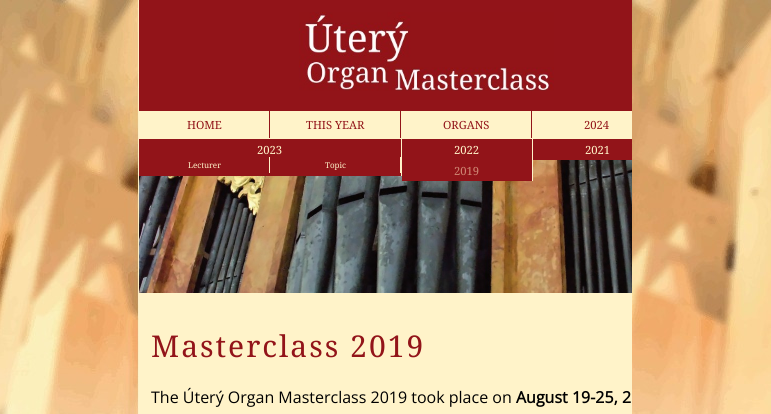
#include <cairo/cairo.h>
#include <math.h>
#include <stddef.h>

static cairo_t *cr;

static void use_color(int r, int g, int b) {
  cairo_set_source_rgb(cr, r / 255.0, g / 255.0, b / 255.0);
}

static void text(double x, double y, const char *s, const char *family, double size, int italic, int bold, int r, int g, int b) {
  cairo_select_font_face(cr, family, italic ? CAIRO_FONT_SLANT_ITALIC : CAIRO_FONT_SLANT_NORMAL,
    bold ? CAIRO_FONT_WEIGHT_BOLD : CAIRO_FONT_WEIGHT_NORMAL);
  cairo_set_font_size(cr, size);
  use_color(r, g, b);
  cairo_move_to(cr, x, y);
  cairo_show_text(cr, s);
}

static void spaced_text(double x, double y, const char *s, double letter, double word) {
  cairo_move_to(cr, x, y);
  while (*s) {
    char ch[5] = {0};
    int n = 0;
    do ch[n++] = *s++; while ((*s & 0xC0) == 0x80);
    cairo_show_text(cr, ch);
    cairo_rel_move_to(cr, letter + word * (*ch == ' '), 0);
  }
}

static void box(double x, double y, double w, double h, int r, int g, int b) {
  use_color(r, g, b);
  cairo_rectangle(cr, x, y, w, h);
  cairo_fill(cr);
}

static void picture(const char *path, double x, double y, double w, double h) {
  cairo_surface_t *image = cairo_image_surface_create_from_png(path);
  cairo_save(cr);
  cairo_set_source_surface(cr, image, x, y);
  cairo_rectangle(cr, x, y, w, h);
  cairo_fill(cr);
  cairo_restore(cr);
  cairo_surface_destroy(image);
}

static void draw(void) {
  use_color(255, 243, 201);
  cairo_paint(cr);
  picture("img_01.png", 0, 0, 139, 414);
  box(139, 0, 493, 111, 146, 20, 25);
  picture("img_02.png", 299, 12, 255, 79);
  box(269, 111, 1, 28, 146, 20, 25);
  box(269, 138, 1, 1, 255, 243, 201);
  box(400, 111, 1, 28, 146, 20, 25);
  box(400, 138, 1, 1, 255, 243, 201);
  box(531, 111, 1, 28, 146, 20, 25);
  box(531, 138, 1, 1, 255, 243, 201);
  picture("img_03.png", 139, 160, 493, 133);
  box(139, 139, 262, 37, 146, 20, 25);
  box(401, 160, 1, 16, 255, 243, 201);
  box(269, 157, 1, 16, 255, 243, 201);
  box(400, 157, 1, 16, 255, 243, 201);
  box(402, 139, 130, 42, 146, 20, 25);
  box(533, 139, 99, 21, 146, 20, 25);
  box(532, 160, 1, 21, 255, 243, 201);
  picture("img_04.png", 632, 0, 139, 414);
  text(187, 129, "HOME", "Noto Serif", 11.25, 0, 0, 146, 20, 25);
  text(306, 129, "THIS YEAR", "Noto Serif", 11.25, 0, 0, 146, 20, 25);
  text(443, 129, "ORGANS", "Noto Serif", 11.25, 0, 0, 146, 20, 25);
  text(584, 129, "2024", "Noto Serif", 11.25, 0, 0, 146, 20, 25);
  text(257, 154, "2023", "Noto Serif", 11.25, 0, 0, 255, 243, 201);
  text(188, 168, "Lecturer", "Noto Serif", 8, 0, 0, 255, 243, 201);
  text(325, 168, "Topic", "Noto Serif", 8, 0, 0, 255, 243, 201);
  text(454, 154, "2022", "Noto Serif", 11.25, 0, 0, 255, 243, 201);
  text(585, 154, "2021", "Noto Serif", 11.25, 0, 0, 255, 243, 201);
  text(454, 175, "2019", "Noto Serif", 11.25, 0, 0, 206, 134, 115);
  cairo_set_font_size(cr, 30);
  use_color(146, 20, 25);
  spaced_text(151, 357, "Masterclass 2019", 2, 0);
  text(151, 403, "The Úterý Organ Masterclass 2019 took place on", "Open Sans", 16, 0, 0, 0, 0, 0);
  text(516, 403, "August 19-25, 2", "Open Sans", 16, 0, 1, 0, 0, 0);
}

int main(void) {
  cairo_surface_t *surface = cairo_image_surface_create(CAIRO_FORMAT_RGB24, 771, 414);
  cr = cairo_create(surface);
  cairo_font_options_t *options = cairo_font_options_create();
  cairo_font_options_set_hint_metrics(options, CAIRO_HINT_METRICS_OFF);
  cairo_font_options_set_hint_style(options, CAIRO_HINT_STYLE_NONE);
  cairo_set_font_options(cr, options);
  cairo_set_miter_limit(cr, 4);
  draw();
  cairo_surface_write_to_png(surface, "out.png");
  cairo_font_options_destroy(options);
  cairo_destroy(cr);
  cairo_surface_destroy(surface);
  return 0;
}
